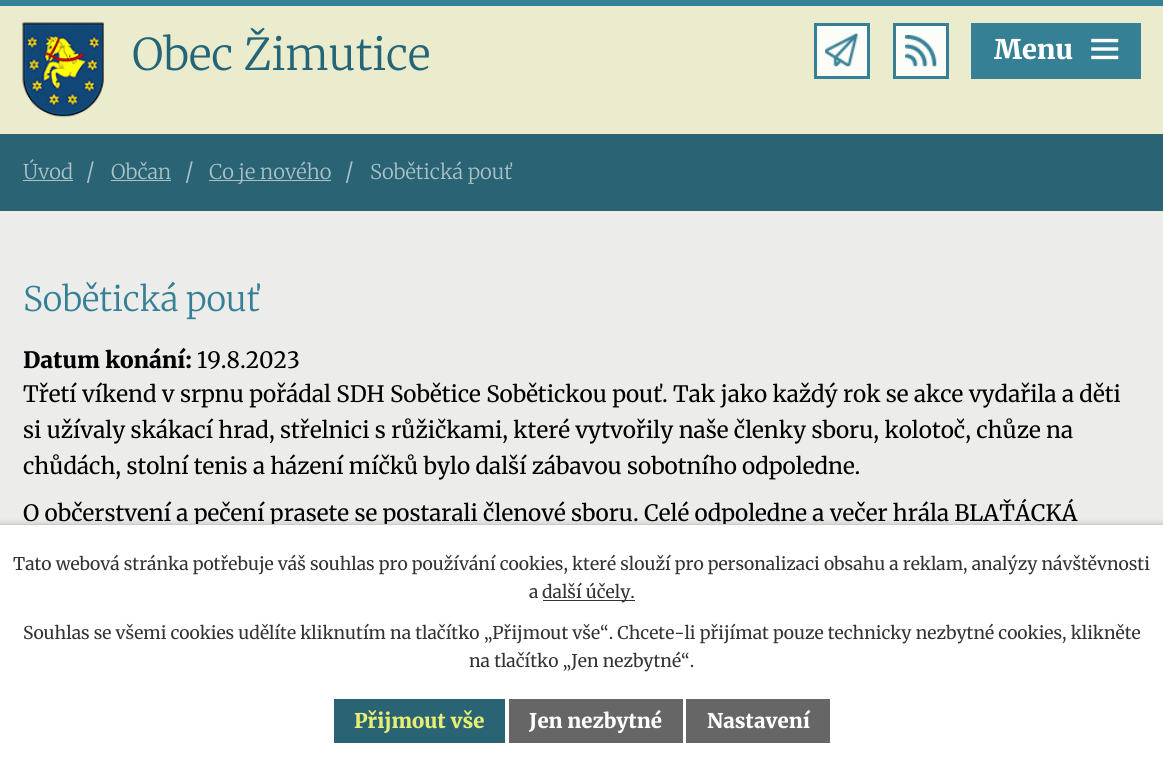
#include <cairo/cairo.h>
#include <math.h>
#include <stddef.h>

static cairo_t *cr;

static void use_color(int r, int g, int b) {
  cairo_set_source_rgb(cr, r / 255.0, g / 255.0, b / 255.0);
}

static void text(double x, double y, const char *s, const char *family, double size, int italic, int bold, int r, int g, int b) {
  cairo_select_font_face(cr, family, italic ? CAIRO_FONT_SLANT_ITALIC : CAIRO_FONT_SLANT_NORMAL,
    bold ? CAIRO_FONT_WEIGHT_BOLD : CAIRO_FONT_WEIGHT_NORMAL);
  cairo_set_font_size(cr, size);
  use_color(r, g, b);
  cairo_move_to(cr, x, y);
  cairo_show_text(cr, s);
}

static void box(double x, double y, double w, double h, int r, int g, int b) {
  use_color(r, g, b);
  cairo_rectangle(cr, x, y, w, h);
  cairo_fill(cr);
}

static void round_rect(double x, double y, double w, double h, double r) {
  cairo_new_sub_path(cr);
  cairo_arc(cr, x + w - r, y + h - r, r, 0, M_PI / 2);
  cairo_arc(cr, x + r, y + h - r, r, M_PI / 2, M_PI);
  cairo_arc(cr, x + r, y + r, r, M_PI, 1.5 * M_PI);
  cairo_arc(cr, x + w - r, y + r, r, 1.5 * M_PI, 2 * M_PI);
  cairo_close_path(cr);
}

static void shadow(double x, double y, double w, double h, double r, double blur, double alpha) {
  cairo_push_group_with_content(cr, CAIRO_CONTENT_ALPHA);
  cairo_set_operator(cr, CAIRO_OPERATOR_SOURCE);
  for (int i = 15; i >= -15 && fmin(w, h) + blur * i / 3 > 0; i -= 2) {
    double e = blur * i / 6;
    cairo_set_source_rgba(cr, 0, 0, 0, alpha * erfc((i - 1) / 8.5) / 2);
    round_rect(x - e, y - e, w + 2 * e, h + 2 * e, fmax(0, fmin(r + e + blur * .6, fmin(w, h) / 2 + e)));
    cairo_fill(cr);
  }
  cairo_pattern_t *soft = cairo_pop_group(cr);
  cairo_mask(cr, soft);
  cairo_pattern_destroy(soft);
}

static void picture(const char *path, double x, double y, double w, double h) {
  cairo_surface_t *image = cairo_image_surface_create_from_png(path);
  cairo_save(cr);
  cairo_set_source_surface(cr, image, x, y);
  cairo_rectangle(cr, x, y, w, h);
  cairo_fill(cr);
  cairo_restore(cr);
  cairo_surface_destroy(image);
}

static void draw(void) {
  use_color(236, 237, 235);
  cairo_paint(cr);
  box(0, 6, 1163, 128, 234, 236, 205);
  box(0, 0, 1163, 6, 54, 128, 150);
  picture("img_01.png", 22, 22, 82, 95);
  use_color(252, 252, 248);
  cairo_rectangle(cr, 815.5, 24.5, 53, 53);
  cairo_fill_preserve(cr);
  use_color(54, 128, 150);
  cairo_set_line_width(cr, 3);
  cairo_stroke(cr);
  picture("img_02.png", 825, 33, 33, 34);
  use_color(252, 252, 248);
  cairo_rectangle(cr, 894.5, 24.5, 53, 53);
  cairo_fill_preserve(cr);
  use_color(54, 128, 150);
  cairo_stroke(cr);
  picture("img_03.png", 905, 35, 32, 32);
  box(971, 23, 170, 56, 54, 128, 150);
  picture("img_04.png", 1091, 38, 28, 22);
  box(0, 134, 1163, 77, 42, 99, 116);
  box(23, 180, 50, 1, 170, 193, 199);
  box(111, 180, 60, 1, 170, 193, 199);
  box(209, 180, 122, 1, 170, 193, 199);
  use_color(0, 0, 0);
  shadow(0, 524, 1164, 242, 0, 3, 0.2);
  text(132, 70, "Obec Žimutice", "Merriweather Light", 43.75, 0, 0, 36, 101, 120);
  text(994, 59, "Menu", "Merriweather Black", 27, 0, 0, 255, 255, 255);
  text(23, 179, "Úvod", "Merriweather Light", 20.25, 0, 0, 170, 193, 199);
  text(86, 179, "/", "Merriweather Light", 22.5, 0, 0, 170, 193, 199);
  text(111, 179, "Občan", "Merriweather Light", 20.25, 0, 0, 170, 193, 199);
  text(185, 179, "/", "Merriweather Light", 22.5, 0, 0, 170, 193, 199);
  text(209, 179, "Co je nového", "Merriweather Light", 20.25, 0, 0, 170, 193, 199);
  text(345, 179, "/", "Merriweather Light", 22.5, 0, 0, 170, 193, 199);
  text(370, 179, "Sobětická pouť", "Merriweather Light", 20.25, 0, 0, 170, 193, 199);
  text(23, 311, "Sobětická pouť", "Merriweather Light", 33.75, 0, 0, 54, 128, 150);
  text(23, 368, "Datum konání:", "Merriweather Black", 22.5, 0, 0, 0, 0, 0);
  text(197, 368, "19.8.2023", "Merriweather", 22.5, 0, 0, 0, 0, 0);
  text(23, 402, "Třetí víkend v srpnu pořádal SDH Sobětice Sobětickou pouť. Tak jako každý rok se akce vydařila a děti", "Merriweather", 22.5, 0, 0, 0, 0, 0);
  text(23, 438, "si užívaly skákací hrad, střelnici s růžičkami, které vytvořily naše členky sboru, kolotoč, chůze na", "Merriweather", 22.5, 0, 0, 0, 0, 0);
  text(23, 474, "chůdách, stolní tenis a házení míčků bylo další zábavou sobotního odpoledne.", "Merriweather", 22.5, 0, 0, 0, 0, 0);
  text(23, 521, "O občerstvení a pečení prasete se postarali členové sboru. Celé odpoledne a večer hrála BLAŤÁCKÁ", "Merriweather", 22.5, 0, 0, 0, 0, 0);
  box(0, 525, 1163, 241, 255, 255, 255);
  box(0, 524, 1163, 1, 204, 204, 204);
  text(13, 570, "Tato webová stránka potřebuje váš souhlas pro používání cookies, které slouží pro personalizaci obsahu a reklam, analýzy návštěvnosti", "Merriweather", 17.5, 0, 0, 51, 51, 51);
  text(529, 598, "a", "Merriweather", 17.5, 0, 0, 51, 51, 51);
  box(543, 600, 92, 1, 51, 51, 51);
  text(542, 598, "další účely.", "Merriweather", 17.5, 0, 0, 51, 51, 51);
  text(23, 639, "Souhlas se všemi cookies udělíte kliknutím na tlačítko „Přijmout vše“. Chcete-li přijímat pouze technicky nezbytné cookies, klikněte", "Merriweather", 17.5, 0, 0, 51, 51, 51);
  text(469, 667, "na tlačítko „Jen nezbytné“.", "Merriweather", 17.5, 0, 0, 51, 51, 51);
  box(334, 699, 171, 44, 42, 99, 116);
  text(354, 728, "Přijmout vše", "Merriweather Black", 20.25, 0, 0, 232, 238, 116);
  box(509, 699, 174, 44, 102, 102, 102);
  text(529, 728, "Jen nezbytné", "Merriweather Black", 20.25, 0, 0, 255, 255, 255);
  box(686, 699, 144, 44, 102, 102, 102);
  text(707, 728, "Nastavení", "Merriweather Black", 20.25, 0, 0, 255, 255, 255);
}

int main(void) {
  cairo_surface_t *surface = cairo_image_surface_create(CAIRO_FORMAT_RGB24, 1163, 766);
  cr = cairo_create(surface);
  cairo_font_options_t *options = cairo_font_options_create();
  cairo_font_options_set_hint_metrics(options, CAIRO_HINT_METRICS_OFF);
  cairo_font_options_set_hint_style(options, CAIRO_HINT_STYLE_NONE);
  cairo_set_font_options(cr, options);
  cairo_set_miter_limit(cr, 4);
  draw();
  cairo_surface_write_to_png(surface, "out.png");
  cairo_font_options_destroy(options);
  cairo_destroy(cr);
  cairo_surface_destroy(surface);
  return 0;
}
